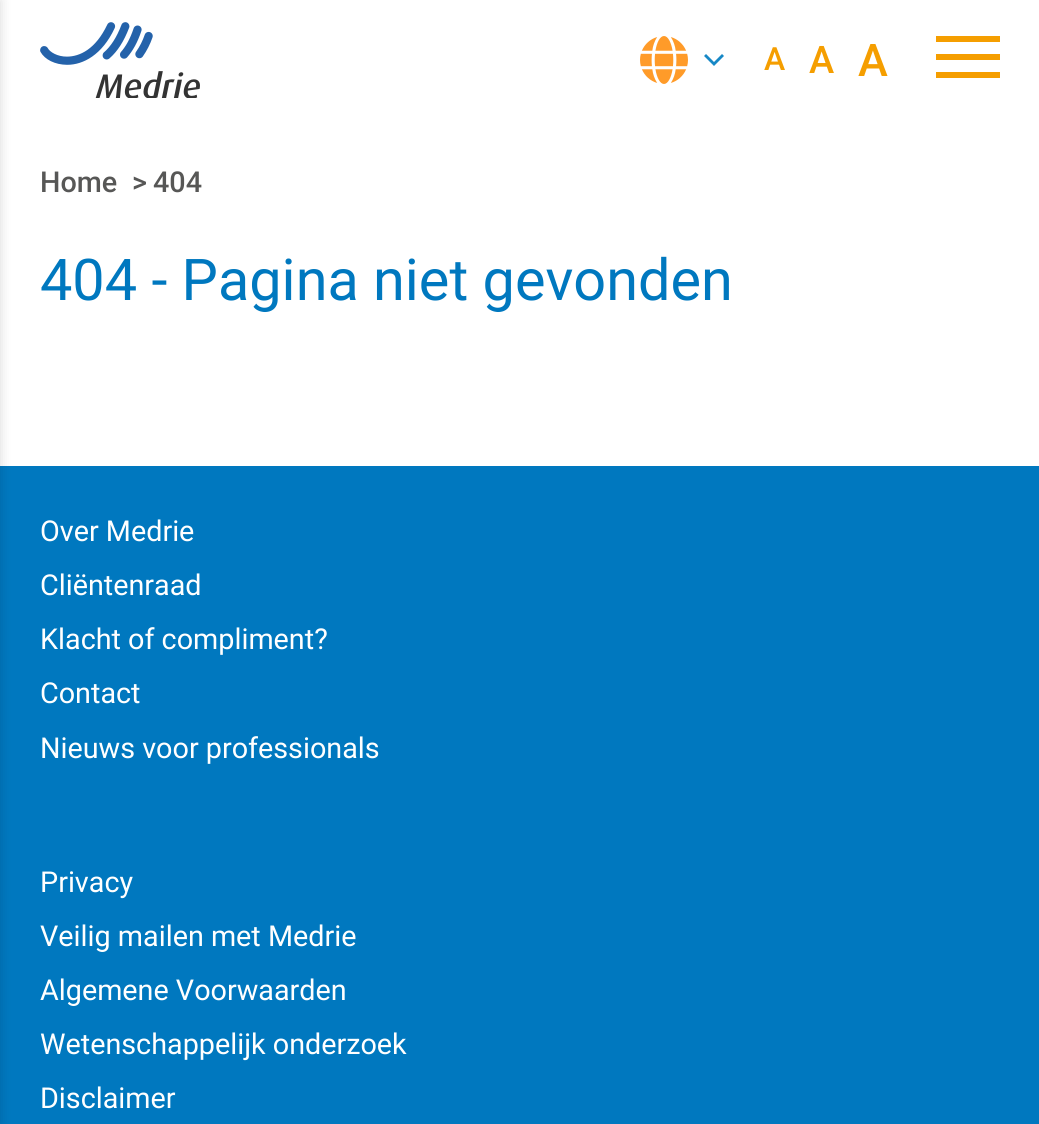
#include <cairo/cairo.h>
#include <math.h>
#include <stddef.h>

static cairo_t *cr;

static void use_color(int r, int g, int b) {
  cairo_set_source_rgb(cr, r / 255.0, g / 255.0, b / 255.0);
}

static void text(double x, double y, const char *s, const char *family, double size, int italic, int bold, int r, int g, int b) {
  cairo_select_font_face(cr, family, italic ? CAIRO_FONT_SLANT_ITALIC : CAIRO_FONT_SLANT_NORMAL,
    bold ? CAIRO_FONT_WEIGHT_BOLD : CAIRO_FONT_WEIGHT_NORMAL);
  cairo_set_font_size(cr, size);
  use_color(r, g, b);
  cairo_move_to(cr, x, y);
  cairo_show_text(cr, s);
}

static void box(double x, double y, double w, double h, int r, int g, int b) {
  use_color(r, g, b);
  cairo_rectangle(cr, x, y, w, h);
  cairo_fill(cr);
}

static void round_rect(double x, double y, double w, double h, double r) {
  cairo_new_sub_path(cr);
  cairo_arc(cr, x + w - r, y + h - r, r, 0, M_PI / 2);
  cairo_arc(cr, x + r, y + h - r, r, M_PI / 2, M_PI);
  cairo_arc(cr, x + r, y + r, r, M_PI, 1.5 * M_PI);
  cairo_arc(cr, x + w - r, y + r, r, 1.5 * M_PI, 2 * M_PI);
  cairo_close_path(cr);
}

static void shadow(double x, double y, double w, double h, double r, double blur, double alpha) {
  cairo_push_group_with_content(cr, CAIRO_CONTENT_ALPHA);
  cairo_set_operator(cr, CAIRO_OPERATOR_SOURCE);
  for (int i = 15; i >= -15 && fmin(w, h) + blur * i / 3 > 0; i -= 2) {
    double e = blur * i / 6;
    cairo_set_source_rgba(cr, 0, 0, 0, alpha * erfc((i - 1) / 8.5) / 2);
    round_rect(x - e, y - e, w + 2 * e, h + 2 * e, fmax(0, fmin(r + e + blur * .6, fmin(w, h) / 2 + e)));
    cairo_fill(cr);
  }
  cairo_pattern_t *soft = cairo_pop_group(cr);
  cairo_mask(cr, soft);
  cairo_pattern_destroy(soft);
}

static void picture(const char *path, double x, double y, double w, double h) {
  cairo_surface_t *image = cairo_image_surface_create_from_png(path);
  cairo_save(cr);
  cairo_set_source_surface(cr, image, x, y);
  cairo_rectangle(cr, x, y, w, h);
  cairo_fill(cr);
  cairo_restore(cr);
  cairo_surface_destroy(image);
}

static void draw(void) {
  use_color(255, 255, 255);
  cairo_paint(cr);
  box(0, 466, 1039, 658, 0, 120, 191);
  use_color(0, 0, 0);
  shadow(-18, 0, 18, 1124, 0, 6, 0.15);
  picture("img_01.png", 40, 22, 160, 76);
  picture("img_02.png", 640, 36, 48, 48);
  use_color(23, 136, 198);
  cairo_new_path(cr);
  cairo_move_to(cr, 706, 54);
  cairo_line_to(cr, 714, 62);
  cairo_line_to(cr, 722, 54);
  cairo_line_to(cr, 724, 56);
  cairo_line_to(cr, 714, 66);
  cairo_line_to(cr, 704, 56);
  cairo_close_path(cr);
  cairo_fill(cr);
  box(936, 36, 64, 6, 245, 158, 0);
  box(936, 54, 64, 6, 245, 158, 0);
  box(936, 72, 64, 6, 245, 158, 0);
  text(764, 70, "A", "Roboto Medium", 32, 0, 0, 245, 158, 0);
  text(809, 73, "A", "Roboto Medium", 38, 0, 0, 245, 158, 0);
  text(858, 76, "A", "Roboto Medium", 45, 0, 0, 245, 158, 0);
  text(40, 192, "Home", "Roboto Medium", 28.75, 0, 0, 87, 87, 86);
  text(132, 192, ">", "Roboto Medium", 28.75, 0, 0, 87, 87, 86);
  text(153, 192, "404", "Roboto Medium", 28.75, 0, 0, 87, 87, 86);
  text(40, 300, "404 - Pagina niet gevonden", "Roboto", 57.6, 0, 0, 0, 120, 191);
  text(40, 541, "Over Medrie", "Roboto", 28.75, 0, 0, 255, 255, 255);
  text(40, 595, "Cliëntenraad", "Roboto", 28.75, 0, 0, 255, 255, 255);
  text(40, 649, "Klacht of compliment?", "Roboto", 28.75, 0, 0, 255, 255, 255);
  text(40, 703, "Contact", "Roboto", 28.75, 0, 0, 255, 255, 255);
  text(40, 758, "Nieuws voor professionals", "Roboto", 28.75, 0, 0, 255, 255, 255);
  text(40, 892, "Privacy", "Roboto", 28.75, 0, 0, 255, 255, 255);
  text(40, 946, "Veilig mailen met Medrie", "Roboto", 28.75, 0, 0, 255, 255, 255);
  text(40, 1000, "Algemene Voorwaarden", "Roboto", 28.75, 0, 0, 255, 255, 255);
  text(40, 1054, "Wetenschappelijk onderzoek", "Roboto", 28.75, 0, 0, 255, 255, 255);
  text(40, 1108, "Disclaimer", "Roboto", 28.75, 0, 0, 255, 255, 255);
}

int main(void) {
  cairo_surface_t *surface = cairo_image_surface_create(CAIRO_FORMAT_RGB24, 1039, 1124);
  cr = cairo_create(surface);
  cairo_font_options_t *options = cairo_font_options_create();
  cairo_font_options_set_hint_metrics(options, CAIRO_HINT_METRICS_OFF);
  cairo_font_options_set_hint_style(options, CAIRO_HINT_STYLE_NONE);
  cairo_set_font_options(cr, options);
  cairo_set_miter_limit(cr, 4);
  draw();
  cairo_surface_write_to_png(surface, "out.png");
  cairo_font_options_destroy(options);
  cairo_destroy(cr);
  cairo_surface_destroy(surface);
  return 0;
}
